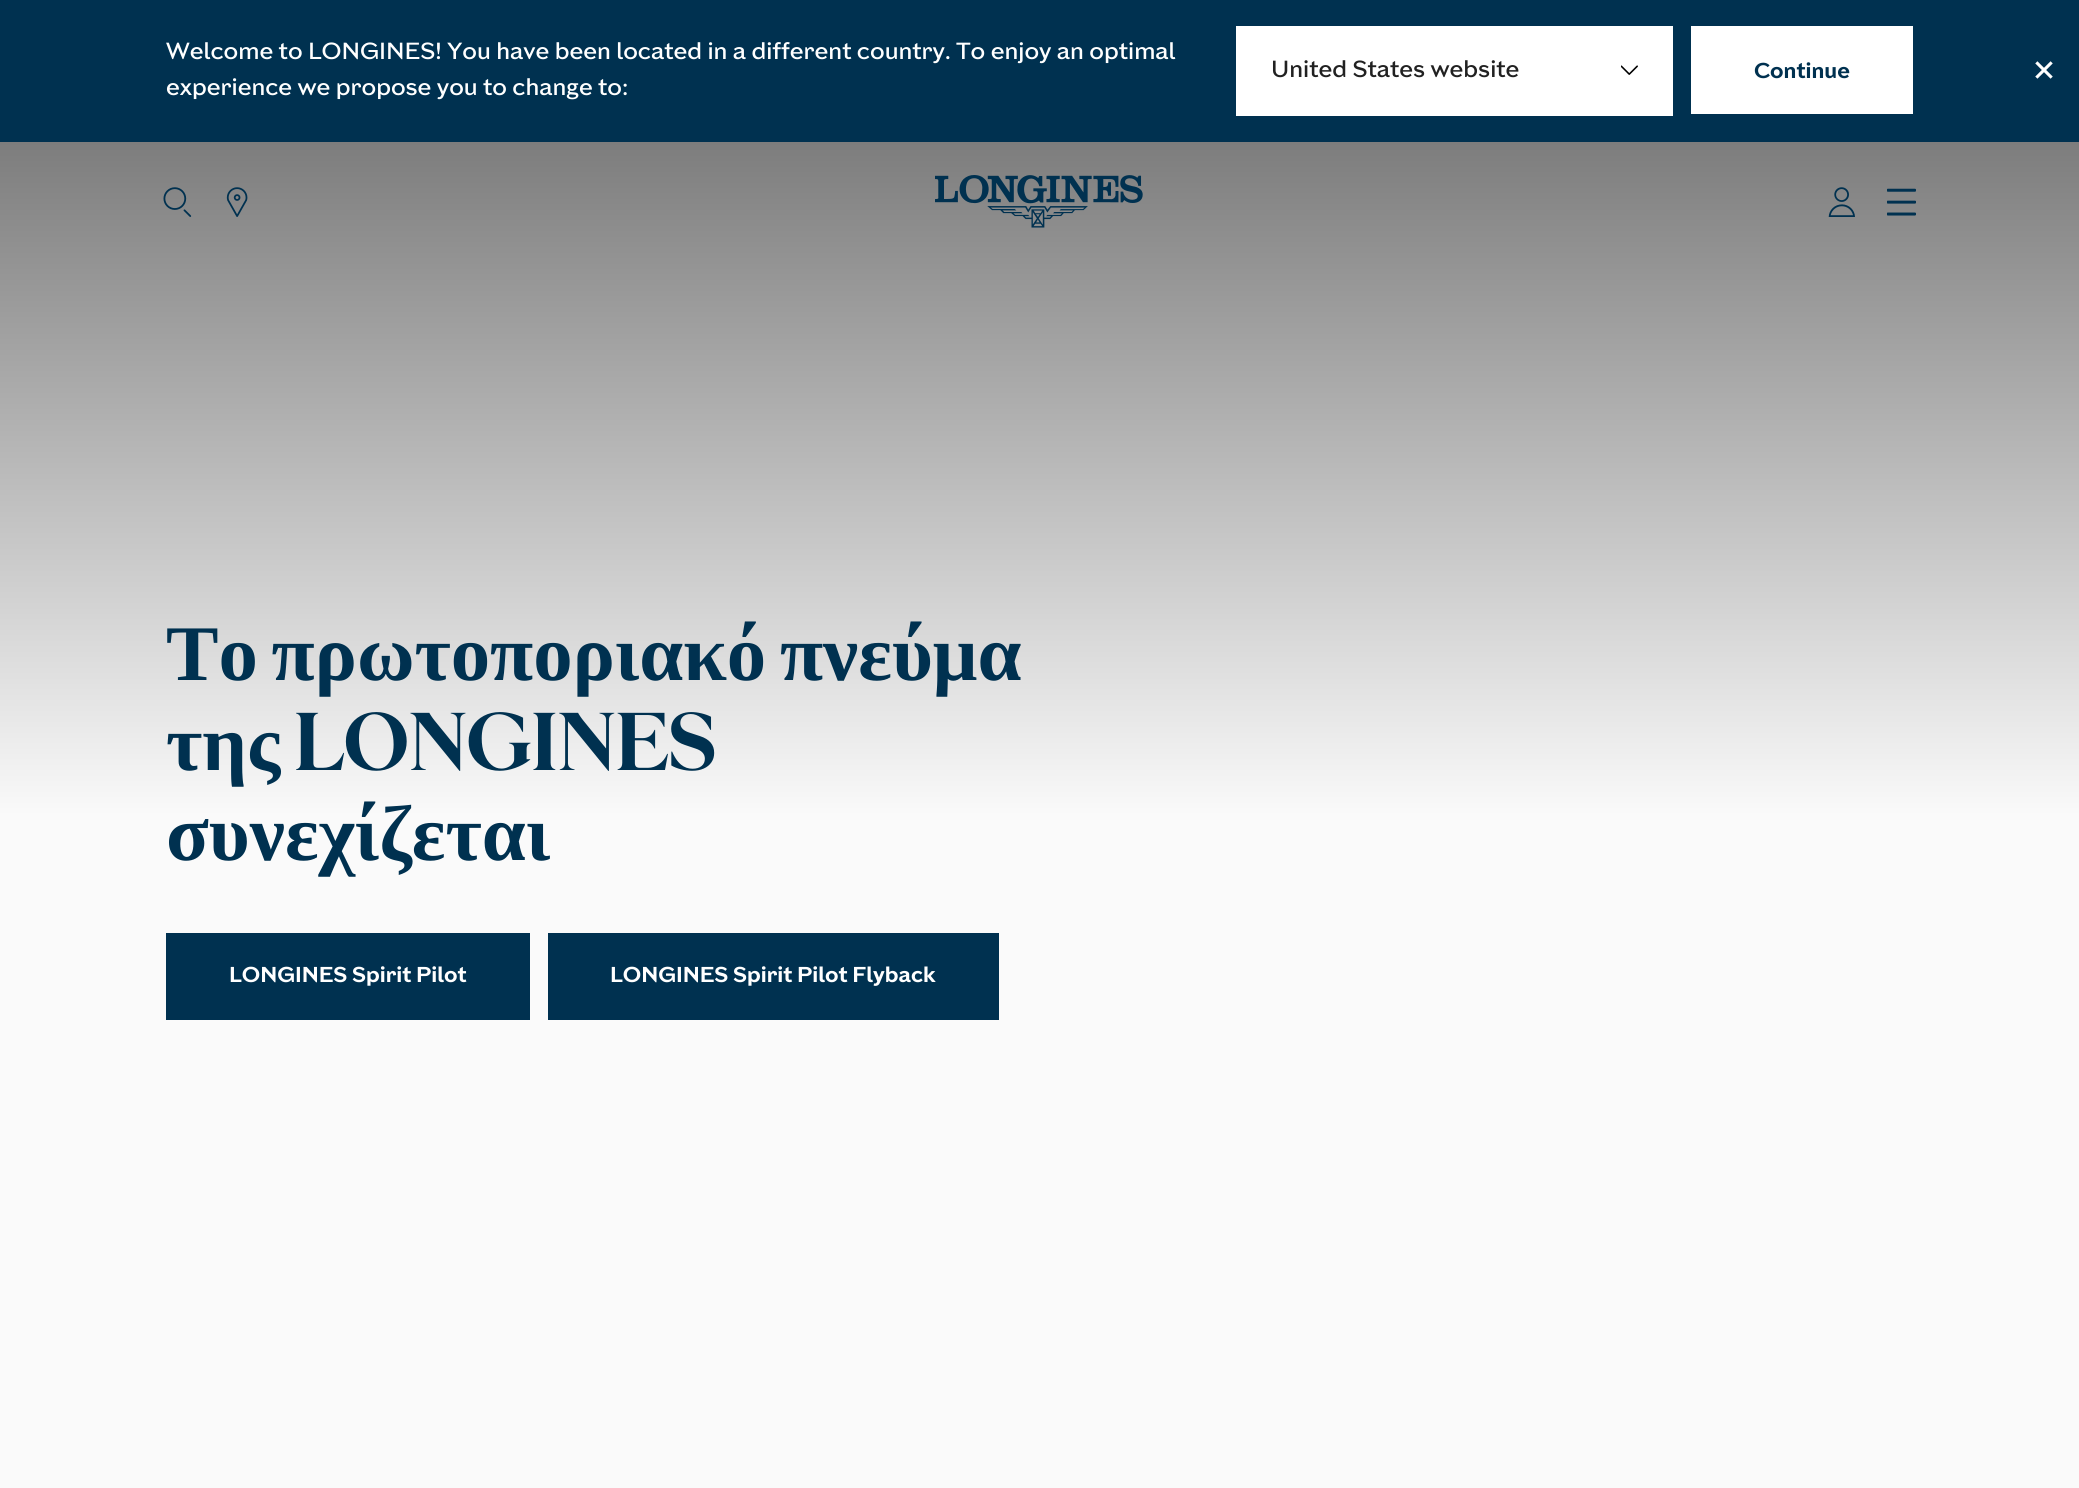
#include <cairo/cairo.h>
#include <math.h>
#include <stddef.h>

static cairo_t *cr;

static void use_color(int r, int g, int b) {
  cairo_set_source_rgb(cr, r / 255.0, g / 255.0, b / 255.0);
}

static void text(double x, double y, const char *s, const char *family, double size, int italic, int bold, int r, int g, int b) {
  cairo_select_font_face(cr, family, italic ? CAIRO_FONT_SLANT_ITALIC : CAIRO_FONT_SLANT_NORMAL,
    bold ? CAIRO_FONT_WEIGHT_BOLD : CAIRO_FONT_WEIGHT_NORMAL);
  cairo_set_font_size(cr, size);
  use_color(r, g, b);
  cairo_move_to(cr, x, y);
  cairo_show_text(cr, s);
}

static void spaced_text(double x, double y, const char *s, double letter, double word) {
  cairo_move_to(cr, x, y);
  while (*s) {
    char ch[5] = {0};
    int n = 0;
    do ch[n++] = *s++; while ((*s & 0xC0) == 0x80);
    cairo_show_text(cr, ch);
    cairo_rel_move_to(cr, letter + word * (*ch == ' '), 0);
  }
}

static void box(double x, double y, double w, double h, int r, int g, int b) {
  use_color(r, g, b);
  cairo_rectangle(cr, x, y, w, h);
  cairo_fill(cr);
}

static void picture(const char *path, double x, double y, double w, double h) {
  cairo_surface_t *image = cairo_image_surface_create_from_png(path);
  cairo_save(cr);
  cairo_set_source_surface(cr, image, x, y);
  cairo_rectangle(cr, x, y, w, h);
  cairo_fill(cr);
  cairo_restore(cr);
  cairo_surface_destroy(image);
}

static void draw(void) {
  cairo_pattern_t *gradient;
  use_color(0, 49, 80);
  cairo_paint(cr);
  box(1236, 26, 437, 90, 255, 255, 255);
  picture("img_01.png", 1621, 65, 17, 10);
  box(1691, 26, 222, 88, 255, 255, 255);
  picture("img_02.png", 2035, 61, 18, 18);
  gradient = cairo_pattern_create_linear(1040, 142, 1040, 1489);
  cairo_pattern_add_color_stop_rgba(gradient, 0, 0.49, 0.49, 0.49, 1);
  cairo_pattern_add_color_stop_rgba(gradient, 0.5, 0.98, 0.98, 0.98, 1);
  cairo_set_source(cr, gradient);
  cairo_pattern_destroy(gradient);
  cairo_rectangle(cr, 0, 142, 2079, 1346);
  cairo_fill(cr);
  picture("img_03.png", 163, 187, 29, 30);
  picture("img_04.png", 226, 187, 22, 30);
  picture("img_05.png", 935, 175, 208, 53);
  picture("img_06.png", 1828, 187, 27, 30);
  picture("img_07.png", 1887, 188, 29, 28);
  box(166, 933, 364, 87, 0, 49, 80);
  box(548, 933, 451, 87, 0, 49, 80);
  text(166, 59, "Welcome to LONGINES! You have been located in a different country. To enjoy an optimal", "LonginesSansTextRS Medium", 22.75, 0, 0, 255, 255, 255);
  text(166, 95, "experience we propose you to change to:", "LonginesSansTextRS Medium", 22.75, 0, 0, 255, 255, 255);
  text(1271, 77, "United States website", "LonginesSansTextRS Medium", 22.75, 0, 0, 33, 33, 33);
  text(1754, 78, "Continue", "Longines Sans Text", 21, 0, 1, 0, 49, 80);
  cairo_select_font_face(cr, "Liberation Serif", CAIRO_FONT_SLANT_NORMAL, CAIRO_FONT_WEIGHT_BOLD);
  cairo_set_font_size(cr, 78.75);
  spaced_text(166, 680, "Το πρωτοποριακό πνεύμα", 0, -6);
  text(166, 770, "της", "Liberation Serif", 78.75, 0, 1, 0, 49, 80);
  text(294, 770, "LONGINES", "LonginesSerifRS", 78.75, 0, 1, 0, 49, 80);
  text(166, 860, "συνεχίζεται", "Liberation Serif", 78.75, 0, 1, 0, 49, 80);
  text(229, 982, "LONGINES Spirit Pilot", "Longines Sans Text", 21, 0, 1, 255, 255, 255);
  text(610, 982, "LONGINES Spirit Pilot Flyback", "Longines Sans Text", 21, 0, 1, 255, 255, 255);
}

int main(void) {
  cairo_surface_t *surface = cairo_image_surface_create(CAIRO_FORMAT_RGB24, 2079, 1488);
  cr = cairo_create(surface);
  cairo_font_options_t *options = cairo_font_options_create();
  cairo_font_options_set_hint_metrics(options, CAIRO_HINT_METRICS_OFF);
  cairo_font_options_set_hint_style(options, CAIRO_HINT_STYLE_NONE);
  cairo_set_font_options(cr, options);
  cairo_set_miter_limit(cr, 4);
  draw();
  cairo_surface_write_to_png(surface, "out.png");
  cairo_font_options_destroy(options);
  cairo_destroy(cr);
  cairo_surface_destroy(surface);
  return 0;
}
